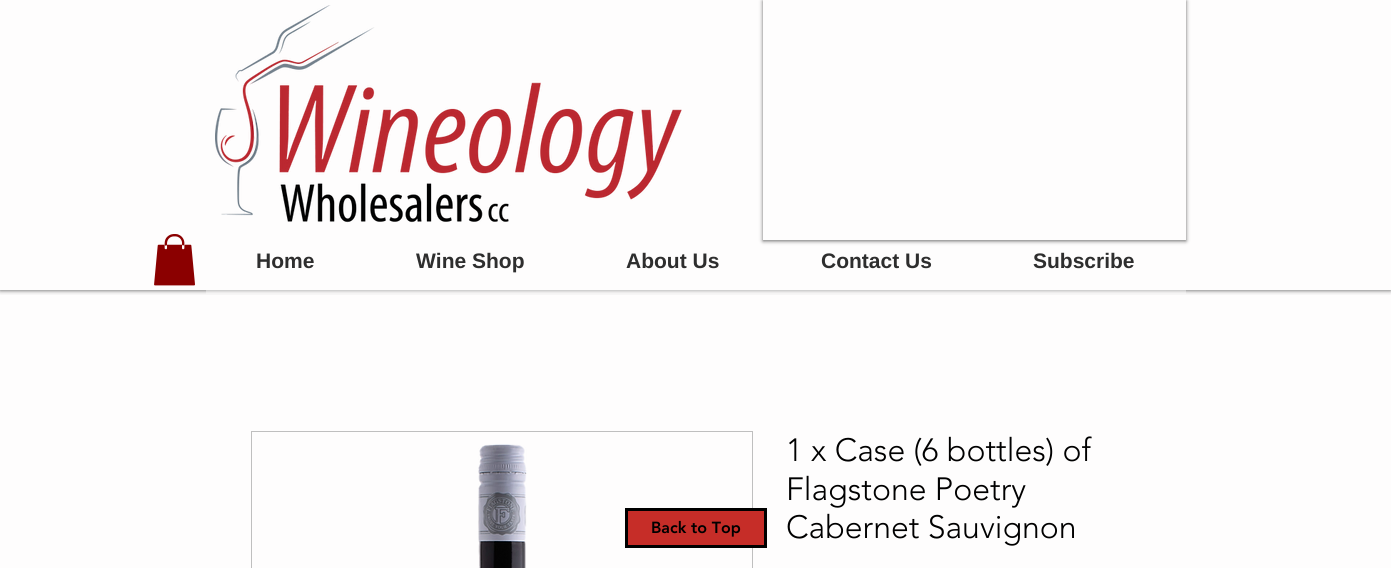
#include <cairo/cairo.h>
#include <math.h>
#include <stddef.h>

static cairo_t *cr;

static void use_color(int r, int g, int b) {
  cairo_set_source_rgb(cr, r / 255.0, g / 255.0, b / 255.0);
}

static void text(double x, double y, const char *s, const char *family, double size, int italic, int bold, int r, int g, int b) {
  cairo_select_font_face(cr, family, italic ? CAIRO_FONT_SLANT_ITALIC : CAIRO_FONT_SLANT_NORMAL,
    bold ? CAIRO_FONT_WEIGHT_BOLD : CAIRO_FONT_WEIGHT_NORMAL);
  cairo_set_font_size(cr, size);
  use_color(r, g, b);
  cairo_move_to(cr, x, y);
  cairo_show_text(cr, s);
}

static void round_rect(double x, double y, double w, double h, double r) {
  cairo_new_sub_path(cr);
  cairo_arc(cr, x + w - r, y + h - r, r, 0, M_PI / 2);
  cairo_arc(cr, x + r, y + h - r, r, M_PI / 2, M_PI);
  cairo_arc(cr, x + r, y + r, r, M_PI, 1.5 * M_PI);
  cairo_arc(cr, x + w - r, y + r, r, 1.5 * M_PI, 2 * M_PI);
  cairo_close_path(cr);
}

static void shadow(double x, double y, double w, double h, double r, double blur, double alpha) {
  cairo_push_group_with_content(cr, CAIRO_CONTENT_ALPHA);
  cairo_set_operator(cr, CAIRO_OPERATOR_SOURCE);
  for (int i = 15; i >= -15 && fmin(w, h) + blur * i / 3 > 0; i -= 2) {
    double e = blur * i / 6;
    cairo_set_source_rgba(cr, 0, 0, 0, alpha * erfc((i - 1) / 8.5) / 2);
    round_rect(x - e, y - e, w + 2 * e, h + 2 * e, fmax(0, fmin(r + e + blur * .6, fmin(w, h) / 2 + e)));
    cairo_fill(cr);
  }
  cairo_pattern_t *soft = cairo_pop_group(cr);
  cairo_mask(cr, soft);
  cairo_pattern_destroy(soft);
}

static void picture(const char *path, double x, double y, double w, double h) {
  cairo_surface_t *image = cairo_image_surface_create_from_png(path);
  cairo_save(cr);
  cairo_set_source_surface(cr, image, x, y);
  cairo_rectangle(cr, x, y, w, h);
  cairo_fill(cr);
  cairo_restore(cr);
  cairo_surface_destroy(image);
}

static void draw(void) {
  use_color(254, 253, 253);
  cairo_paint(cr);
  cairo_save(cr);
  cairo_rectangle(cr, 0, 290, 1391, 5);
  cairo_clip(cr);
  use_color(0, 0, 0);
  shadow(0, 0, 1391, 290, 0, 2.5, 0.7);
  cairo_restore(cr);
  picture("img_01.png", 215, 5, 467, 218);
  cairo_save(cr);
  cairo_set_fill_rule(cr, CAIRO_FILL_RULE_EVEN_ODD);
  cairo_new_path(cr);
  cairo_move_to(cr, 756, 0);
  cairo_line_to(cr, 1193, 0);
  cairo_line_to(cr, 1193, 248);
  cairo_line_to(cr, 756, 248);
  cairo_close_path(cr);
  cairo_move_to(cr, 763, 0);
  cairo_line_to(cr, 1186, 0);
  cairo_line_to(cr, 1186, 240);
  cairo_line_to(cr, 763, 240);
  cairo_close_path(cr);
  cairo_clip(cr);
  use_color(0, 0, 0);
  shadow(763, 1, 423, 240, 0, 2, 0.6);
  cairo_restore(cr);
  picture("img_02.png", 154, 234, 41, 52);
  cairo_rectangle(cr, 251.5, 431.5, 501, 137);
  use_color(191, 191, 191);
  cairo_set_line_width(cr, 1);
  cairo_stroke(cr);
  use_color(198, 45, 40);
  cairo_rectangle(cr, 626.5, 509.5, 139, 37);
  cairo_fill_preserve(cr);
  use_color(0, 0, 0);
  cairo_set_line_width(cr, 3);
  cairo_stroke(cr);
  cairo_set_source_rgba(cr, 0.996, 0.992, 0.992, 0.4);
  cairo_rectangle(cr, 206, 290, 980, 4);
  cairo_fill(cr);
  picture("img_03.png", 478, 444, 49, 124);
  text(256, 268, "Home", "Liberation Sans", 21, 0, 1, 46, 46, 46);
  text(416, 268, "Wine Shop", "Liberation Sans", 21, 0, 1, 46, 46, 46);
  text(626, 268, "About Us", "Liberation Sans", 21, 0, 1, 46, 46, 46);
  text(821, 268, "Contact Us", "Liberation Sans", 21, 0, 1, 46, 46, 46);
  text(1033, 268, "Subscribe", "Liberation Sans", 21, 0, 1, 46, 46, 46);
  text(651, 533, "Back to Top", "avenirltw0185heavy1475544 Black", 16, 0, 0, 0, 0, 0);
  text(786, 461, "1 x Case (6 bottles) of", "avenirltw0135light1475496 Light", 32, 0, 0, 0, 0, 0);
  text(786, 500, "Flagstone Poetry", "avenirltw0135light1475496 Light", 32, 0, 0, 0, 0, 0);
  text(786, 538, "Cabernet Sauvignon", "avenirltw0135light1475496 Light", 32, 0, 0, 0, 0, 0);
}

int main(void) {
  cairo_surface_t *surface = cairo_image_surface_create(CAIRO_FORMAT_RGB24, 1391, 568);
  cr = cairo_create(surface);
  cairo_font_options_t *options = cairo_font_options_create();
  cairo_font_options_set_hint_metrics(options, CAIRO_HINT_METRICS_OFF);
  cairo_font_options_set_hint_style(options, CAIRO_HINT_STYLE_NONE);
  cairo_set_font_options(cr, options);
  cairo_set_miter_limit(cr, 4);
  draw();
  cairo_surface_write_to_png(surface, "out.png");
  cairo_font_options_destroy(options);
  cairo_destroy(cr);
  cairo_surface_destroy(surface);
  return 0;
}
